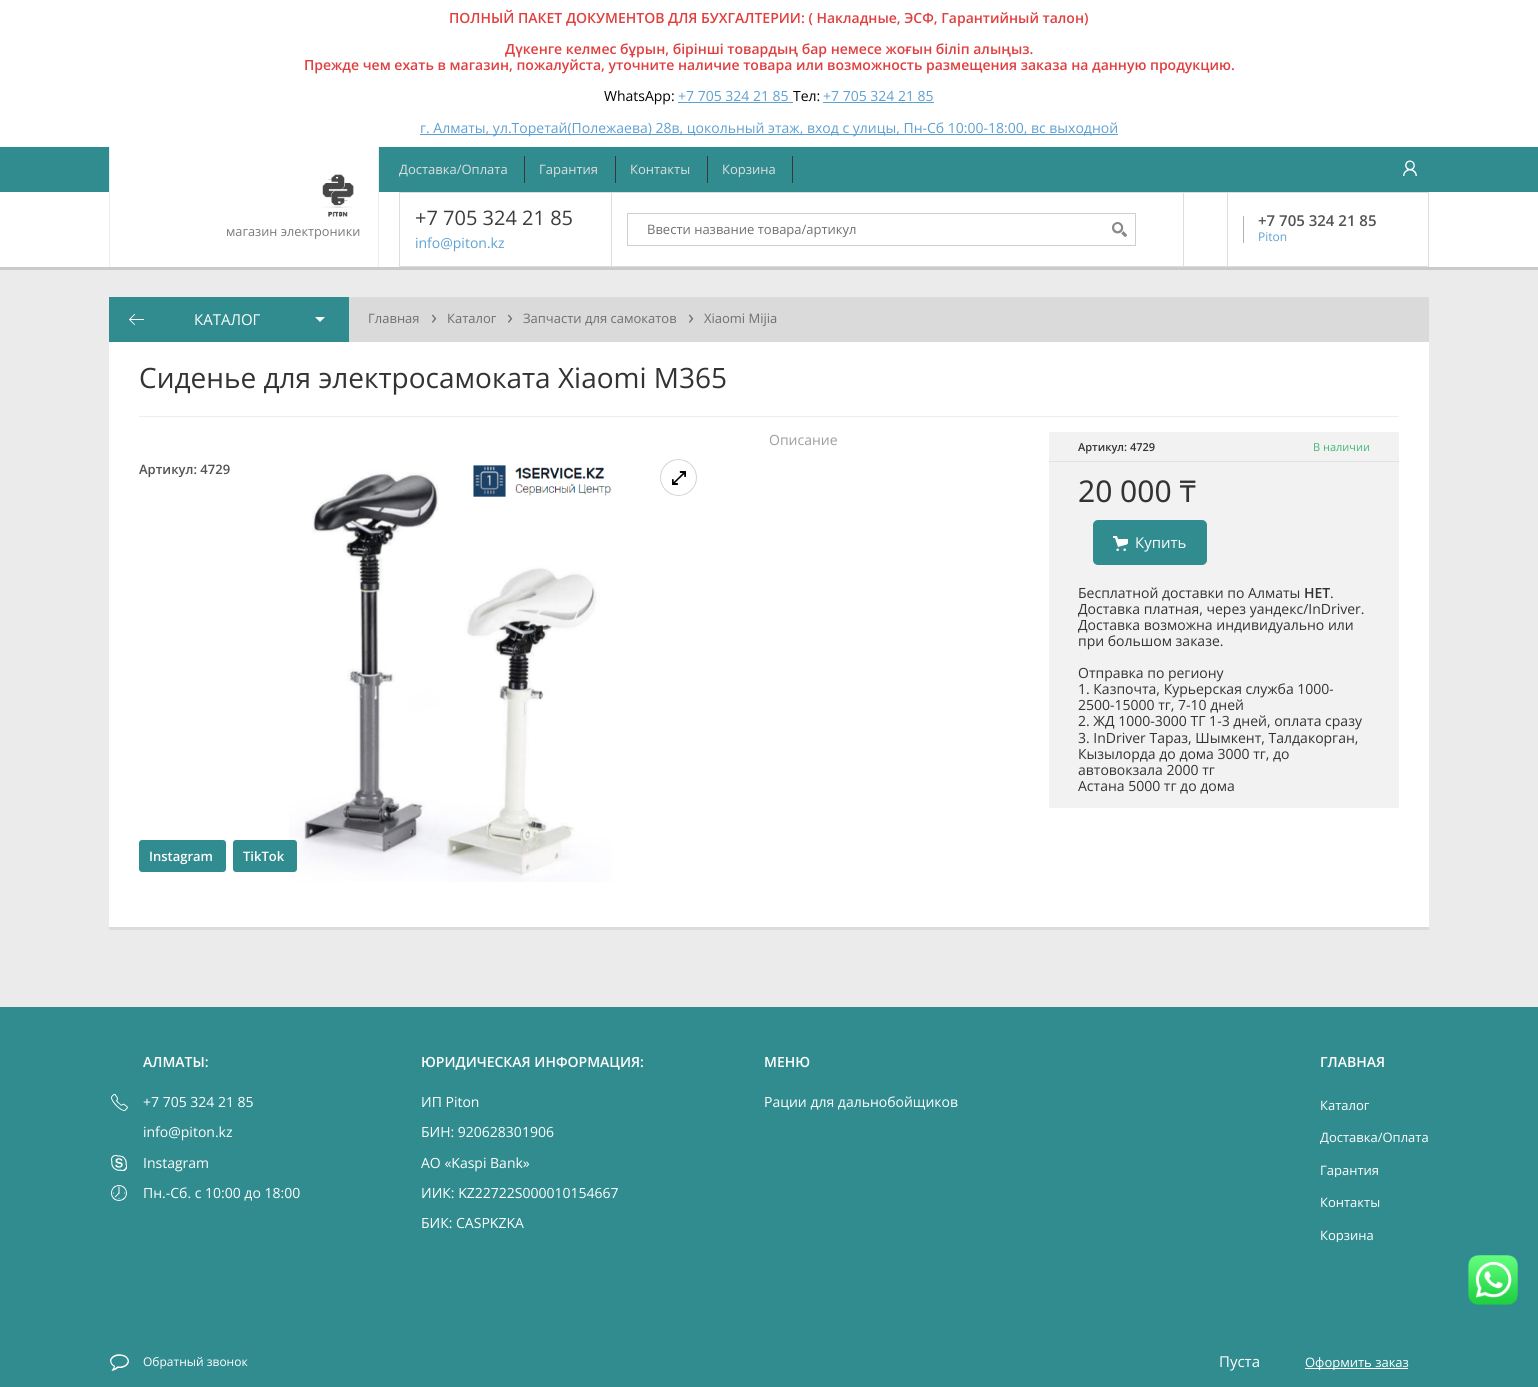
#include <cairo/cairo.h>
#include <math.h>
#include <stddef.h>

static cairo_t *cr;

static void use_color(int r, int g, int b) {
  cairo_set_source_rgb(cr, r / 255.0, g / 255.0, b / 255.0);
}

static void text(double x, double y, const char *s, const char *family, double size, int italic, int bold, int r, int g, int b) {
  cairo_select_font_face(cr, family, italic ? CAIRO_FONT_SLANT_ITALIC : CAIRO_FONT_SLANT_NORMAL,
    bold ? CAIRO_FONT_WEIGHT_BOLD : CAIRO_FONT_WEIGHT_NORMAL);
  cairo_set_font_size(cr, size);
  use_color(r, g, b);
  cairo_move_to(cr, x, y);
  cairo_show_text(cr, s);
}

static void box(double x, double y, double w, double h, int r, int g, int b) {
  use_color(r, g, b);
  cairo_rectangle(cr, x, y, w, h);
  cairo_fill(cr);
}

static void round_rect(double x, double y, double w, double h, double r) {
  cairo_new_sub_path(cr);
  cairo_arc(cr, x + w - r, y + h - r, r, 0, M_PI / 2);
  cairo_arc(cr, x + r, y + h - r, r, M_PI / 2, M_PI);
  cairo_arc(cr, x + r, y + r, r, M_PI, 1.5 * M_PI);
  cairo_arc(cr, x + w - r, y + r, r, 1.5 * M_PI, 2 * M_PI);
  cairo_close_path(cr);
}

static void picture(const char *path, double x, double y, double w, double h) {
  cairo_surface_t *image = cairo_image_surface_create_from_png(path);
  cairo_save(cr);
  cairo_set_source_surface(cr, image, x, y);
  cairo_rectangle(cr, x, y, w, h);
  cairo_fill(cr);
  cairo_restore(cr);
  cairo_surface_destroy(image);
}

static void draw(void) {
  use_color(235, 235, 235);
  cairo_paint(cr);
  box(0, 0, 1538, 147, 255, 255, 255);
  box(678, 102, 115, 1, 93, 161, 211);
  box(823, 102, 111, 1, 93, 161, 211);
  box(420, 134, 698, 1, 93, 161, 211);
  box(0, 147, 1538, 45, 49, 140, 144);
  box(524, 156, 1, 27, 56, 56, 56);
  box(615, 156, 1, 27, 56, 56, 56);
  box(707, 156, 1, 27, 56, 56, 56);
  box(792, 156, 1, 27, 56, 56, 56);
  picture("img_01.png", 1403, 160, 14, 16);
  box(110, 147, 268, 45, 255, 255, 255);
  box(0, 192, 1538, 75, 255, 255, 255);
  box(378, 147, 1, 120, 237, 237, 237);
  box(109, 147, 1, 120, 237, 237, 237);
  picture("img_02.png", 322, 174, 32, 43);
  box(1227, 192, 202, 1, 221, 221, 221);
  box(1428, 192, 1, 75, 221, 221, 221);
  box(1227, 266, 202, 1, 221, 221, 221);
  box(1227, 192, 1, 75, 221, 221, 221);
  box(1183, 192, 45, 1, 221, 221, 221);
  box(1183, 266, 45, 1, 221, 221, 221);
  box(1183, 192, 1, 75, 221, 221, 221);
  box(611, 192, 573, 1, 221, 221, 221);
  box(611, 266, 573, 1, 221, 221, 221);
  box(611, 192, 1, 75, 221, 221, 221);
  box(399, 192, 213, 1, 221, 221, 221);
  box(399, 266, 213, 1, 221, 221, 221);
  box(399, 192, 1, 75, 221, 221, 221);
  cairo_rectangle(cr, 627.5, 213.5, 508, 32);
  use_color(207, 207, 207);
  cairo_set_line_width(cr, 1);
  cairo_stroke(cr);
  picture("img_03.png", 1112, 222, 15, 15);
  box(1243, 216, 1, 27, 179, 179, 179);
  box(0, 267, 1538, 3, 202, 202, 202);
  box(109, 927, 1320, 3, 219, 219, 219);
  box(109, 342, 1320, 585, 255, 255, 255);
  box(109, 297, 240, 45, 49, 140, 144);
  picture("img_04.png", 129, 314, 15, 11);
  use_color(255, 255, 255);
  cairo_new_path(cr);
  cairo_move_to(cr, 315, 317);
  cairo_line_to(cr, 325, 317);
  cairo_line_to(cr, 320, 322);
  cairo_close_path(cr);
  cairo_fill(cr);
  box(349, 297, 1080, 45, 218, 218, 218);
  box(139, 416, 1260, 1, 237, 237, 237);
  picture("img_05.png", 289, 465, 323, 417);
  picture("img_06.png", 660, 459, 37, 37);
  use_color(49, 140, 144);
  round_rect(139, 840, 87, 32, 3);
  cairo_fill(cr);
  round_rect(233, 840, 64, 32, 3);
  cairo_fill(cr);
  box(1049, 432, 350, 376, 242, 242, 242);
  box(1049, 461, 350, 1, 225, 225, 225);
  use_color(49, 140, 144);
  round_rect(1093, 520, 114, 45, 5);
  cairo_fill(cr);
  picture("img_07.png", 1113, 536, 15, 15);
  box(0, 1007, 1538, 380, 49, 140, 144);
  picture("img_08.png", 111, 1094, 17, 17);
  picture("img_09.png", 111, 1155, 16, 16);
  picture("img_10.png", 111, 1185, 16, 16);
  picture("img_11.png", 1468, 1255, 50, 50);
  picture("img_12.png", 110, 1354, 19, 17);
  box(1305, 1368, 103, 1, 255, 255, 255);
  text(449, 23, "ПОЛНЫЙ ПАКЕТ ДОКУМЕНТОВ ДЛЯ БУХГАЛТЕРИИ: ( Накладные, ЭСФ, Гарантийный талон)", "Open Sans SemiBold", 14, 0, 0, 225, 63, 63);
  text(505, 54, "Дүкенге келмес бұрын, бірінші товардың бар немесе жоғын біліп алыңыз.", "Open Sans SemiBold", 14, 0, 0, 225, 63, 63);
  text(304, 70, "Прежде чем ехать в магазин, пожалуйста, уточните наличие товара или возможность размещения заказа на данную продукцию.", "Open Sans SemiBold", 14, 0, 0, 225, 63, 63);
  text(604, 101, "WhatsApp:", "Open Sans", 14, 0, 0, 0, 0, 0);
  text(678, 101, "+7 705 324 21 85", "Open Sans", 14, 0, 0, 93, 161, 211);
  text(793, 101, "Тел:", "Open Sans", 14, 0, 0, 0, 0, 0);
  text(823, 101, "+7 705 324 21 85", "Open Sans", 14, 0, 0, 93, 161, 211);
  text(420, 133, "г. Алматы, ул.Торетай(Полежаева) 28в, цокольный этаж, вход с улицы, Пн-Сб 10:00-18:00, вс выходной", "Open Sans", 14, 0, 0, 93, 161, 211);
  text(399, 174, "Доставка/Оплата", "Open Sans", 13, 0, 0, 223, 223, 223);
  text(539, 174, "Гарантия", "Open Sans", 13, 0, 0, 223, 223, 223);
  text(630, 174, "Контакты", "Open Sans", 13, 0, 0, 223, 223, 223);
  text(722, 174, "Корзина", "Open Sans", 13, 0, 0, 223, 223, 223);
  text(226, 236, "магазин электроники", "Open Sans", 12.75, 0, 0, 122, 122, 122);
  text(415, 225, "+7 705 324 21 85", "Open Sans", 20, 0, 0, 61, 61, 61);
  text(415, 248, "info@piton.kz", "Open Sans", 14, 0, 0, 93, 161, 211);
  text(647, 234, "Ввести название товара/артикул", "Open Sans", 13, 0, 0, 111, 111, 111);
  text(1258, 226, "+7 705 324 21 85", "Open Sans SemiBold", 15, 0, 0, 83, 83, 83);
  text(1258, 241, "Piton", "Open Sans", 12, 0, 0, 93, 161, 211);
  text(194, 325, "КАТАЛОГ", "Open Sans", 15, 0, 0, 255, 255, 255);
  text(368, 323, "Главная", "Open Sans", 13, 0, 0, 111, 111, 111);
  text(431, 324, "›", "Open Sans", 20, 0, 0, 111, 111, 111);
  text(447, 323, "Каталог", "Open Sans", 13, 0, 0, 111, 111, 111);
  text(507, 324, "›", "Open Sans", 20, 0, 0, 111, 111, 111);
  text(523, 323, "Запчасти для самокатов", "Open Sans", 13, 0, 0, 111, 111, 111);
  text(688, 324, "›", "Open Sans", 20, 0, 0, 111, 111, 111);
  text(704, 323, "Xiaomi Mijia", "Open Sans", 13, 0, 0, 111, 111, 111);
  text(139, 388, "Сиденье для электросамоката Xiaomi M365", "Open Sans", 28, 0, 0, 51, 51, 51);
  text(139, 474, "Артикул: 4729", "Open Sans SemiBold", 13, 0, 0, 83, 83, 83);
  text(149, 861, "Instagram", "Open Sans SemiBold", 13, 0, 0, 255, 255, 255);
  text(243, 861, "TikTok", "Open Sans SemiBold", 13, 0, 0, 255, 255, 255);
  text(769, 445, "Описание", "Open Sans", 14, 0, 0, 157, 157, 157);
  text(1078, 451, "Артикул: 4729", "Open Sans SemiBold", 11, 0, 0, 51, 51, 51);
  text(1313, 451, "В наличии", "Open Sans", 11, 0, 0, 67, 183, 122);
  text(1078, 502, "20 000 ₸", "Noto Sans", 30, 0, 0, 51, 51, 51);
  text(1135, 548, "Купить", "Open Sans", 15, 0, 0, 255, 255, 255);
  text(1078, 598, "Бесплатной доставки по Алматы", "Open Sans", 14, 0, 0, 51, 51, 51);
  text(1304, 598, "НЕТ", "Open Sans SemiBold", 14, 0, 0, 51, 51, 51);
  text(1330, 598, ".", "Open Sans", 14, 0, 0, 51, 51, 51);
  text(1078, 614, "Доставка платная, через уандекс/InDriver.", "Open Sans", 14, 0, 0, 51, 51, 51);
  text(1078, 630, "Доставка возможна индивидуально или", "Open Sans", 14, 0, 0, 51, 51, 51);
  text(1078, 646, "при большом заказе.", "Open Sans", 14, 0, 0, 51, 51, 51);
  text(1078, 678, "Отправка по региону", "Open Sans", 14, 0, 0, 51, 51, 51);
  text(1078, 694, "1. Казпочта, Курьерская служба 1000-", "Open Sans", 14, 0, 0, 51, 51, 51);
  text(1078, 710, "2500-15000 тг, 7-10 дней", "Open Sans", 14, 0, 0, 51, 51, 51);
  text(1078, 726, "2. ЖД 1000-3000 ТГ 1-3 дней, оплата сразу", "Open Sans", 14, 0, 0, 51, 51, 51);
  text(1078, 743, "3. InDriver Тараз, Шымкент, Талдакорган,", "Open Sans", 14, 0, 0, 51, 51, 51);
  text(1078, 759, "Кызылорда до дома 3000 тг, до", "Open Sans", 14, 0, 0, 51, 51, 51);
  text(1078, 775, "автовокзала 2000 тг", "Open Sans", 14, 0, 0, 51, 51, 51);
  text(1078, 791, "Астана 5000 тг до дома", "Open Sans", 14, 0, 0, 51, 51, 51);
  text(143, 1067, "АЛМАТЫ:", "Open Sans SemiBold", 14, 0, 0, 255, 255, 255);
  text(143, 1107, "+7 705 324 21 85", "Open Sans", 14, 0, 0, 255, 255, 255);
  text(143, 1137, "info@piton.kz", "Open Sans", 14, 0, 0, 255, 255, 255);
  text(143, 1168, "Instagram", "Open Sans", 14, 0, 0, 255, 255, 255);
  text(143, 1198, "Пн.-Сб. с 10:00 до 18:00", "Open Sans", 14, 0, 0, 255, 255, 255);
  text(421, 1067, "ЮРИДИЧЕСКАЯ ИНФОРМАЦИЯ:", "Open Sans SemiBold", 14, 0, 0, 255, 255, 255);
  text(421, 1107, "ИП Piton", "Open Sans", 14, 0, 0, 255, 255, 255);
  text(421, 1137, "БИН: 920628301906", "Open Sans", 14, 0, 0, 255, 255, 255);
  text(421, 1168, "АО «Kaspi Bank»", "Open Sans", 14, 0, 0, 255, 255, 255);
  text(421, 1198, "ИИК: KZ22722S000010154667", "Open Sans", 14, 0, 0, 255, 255, 255);
  text(421, 1228, "БИК: CASPKZKA", "Open Sans", 14, 0, 0, 255, 255, 255);
  text(764, 1067, "МЕНЮ", "Open Sans SemiBold", 14, 0, 0, 255, 255, 255);
  text(764, 1107, "Рации для дальнобойщиков", "Open Sans", 14, 0, 0, 255, 255, 255);
  text(1320, 1067, "ГЛАВНАЯ", "Open Sans SemiBold", 14, 0, 0, 255, 255, 255);
  text(1320, 1110, "Каталог", "Open Sans", 13, 0, 0, 255, 255, 255);
  cairo_save(cr);
  cairo_rectangle(cr, 1320, 1131, 109, 13);
  cairo_clip(cr);
  text(1320, 1142, "Доставка/Оплата", "Open Sans", 13, 0, 0, 255, 255, 255);
  cairo_restore(cr);
  cairo_save(cr);
  cairo_rectangle(cr, 1320, 1164, 59, 13);
  cairo_clip(cr);
  text(1320, 1175, "Гарантия", "Open Sans", 13, 0, 0, 255, 255, 255);
  cairo_restore(cr);
  text(1320, 1207, "Контакты", "Open Sans", 13, 0, 0, 255, 255, 255);
  cairo_save(cr);
  cairo_rectangle(cr, 1320, 1229, 54, 13);
  cairo_clip(cr);
  text(1320, 1240, "Корзина", "Open Sans", 13, 0, 0, 255, 255, 255);
  cairo_restore(cr);
  text(143, 1366, "Обратный звонок", "Open Sans", 12, 0, 0, 255, 255, 255);
  text(1219, 1367, "Пуста", "Open Sans", 15, 0, 0, 255, 255, 255);
  text(1305, 1367, "Оформить заказ", "Open Sans", 13, 0, 0, 255, 255, 255);
}

int main(void) {
  cairo_surface_t *surface = cairo_image_surface_create(CAIRO_FORMAT_RGB24, 1538, 1387);
  cr = cairo_create(surface);
  cairo_font_options_t *options = cairo_font_options_create();
  cairo_font_options_set_hint_metrics(options, CAIRO_HINT_METRICS_OFF);
  cairo_font_options_set_hint_style(options, CAIRO_HINT_STYLE_NONE);
  cairo_set_font_options(cr, options);
  cairo_set_miter_limit(cr, 4);
  draw();
  cairo_surface_write_to_png(surface, "out.png");
  cairo_font_options_destroy(options);
  cairo_destroy(cr);
  cairo_surface_destroy(surface);
  return 0;
}
